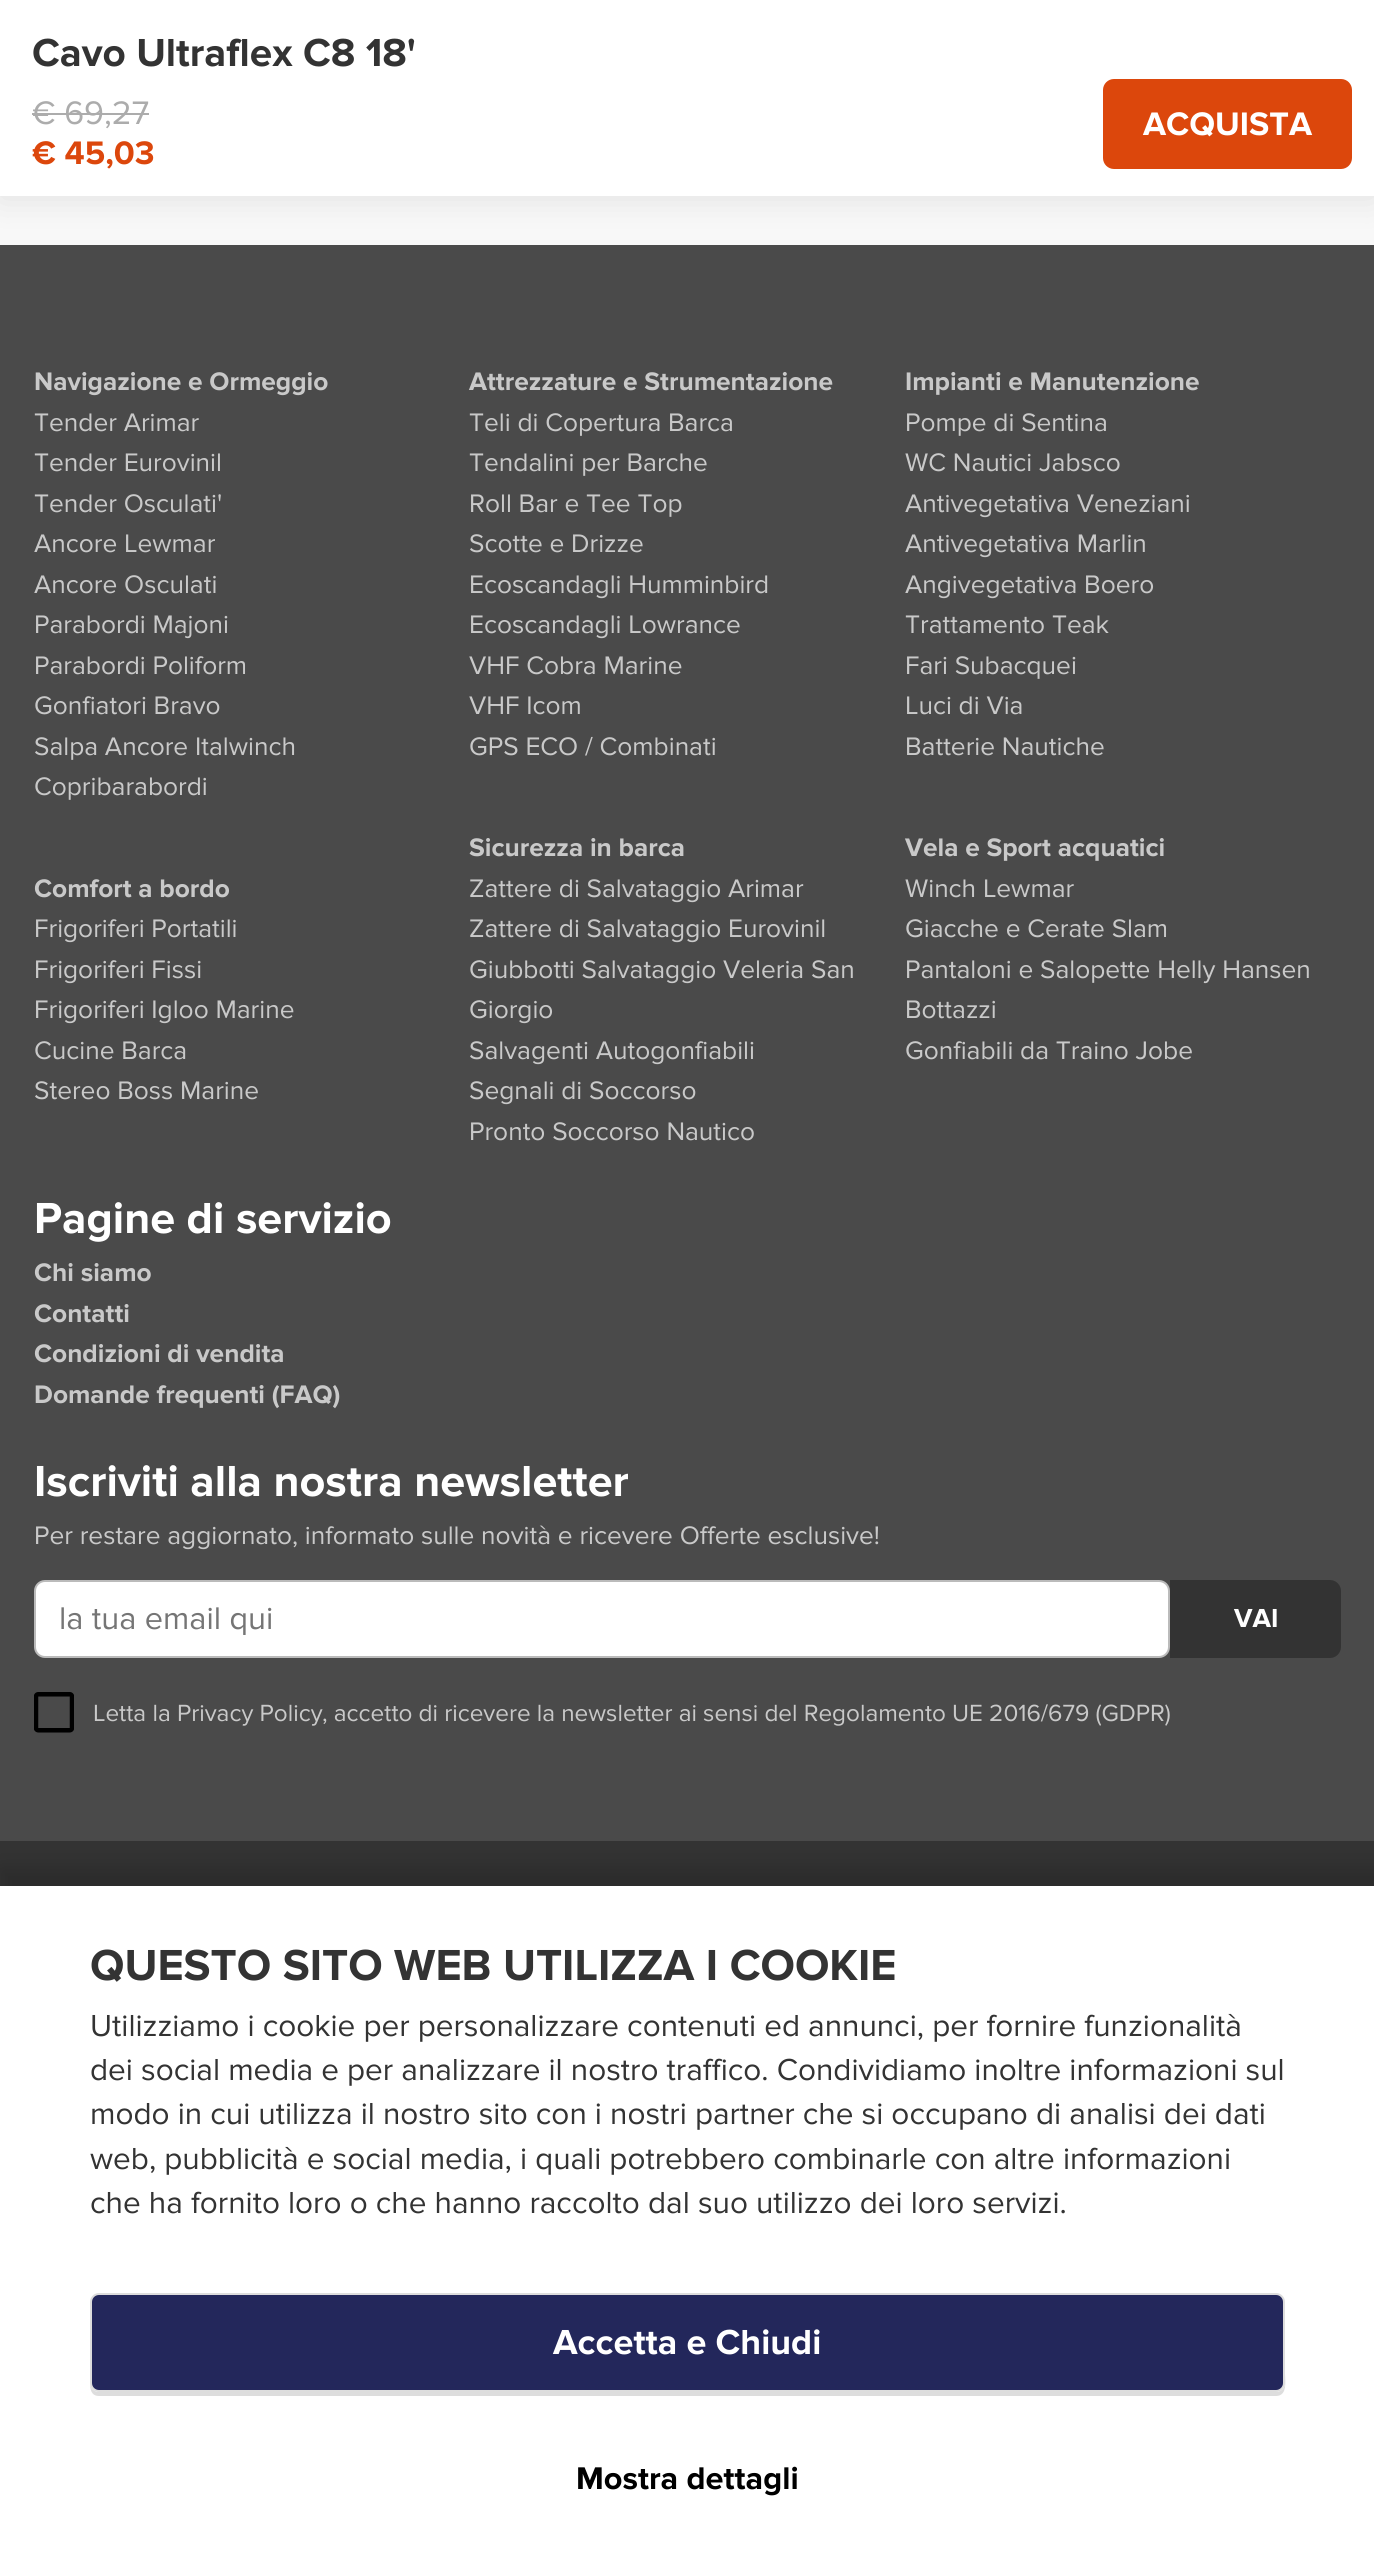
#include <cairo/cairo.h>
#include <math.h>
#include <stddef.h>

static cairo_t *cr;

static void use_color(int r, int g, int b) {
  cairo_set_source_rgb(cr, r / 255.0, g / 255.0, b / 255.0);
}

static void text(double x, double y, const char *s, const char *family, double size, int italic, int bold, int r, int g, int b) {
  cairo_select_font_face(cr, family, italic ? CAIRO_FONT_SLANT_ITALIC : CAIRO_FONT_SLANT_NORMAL,
    bold ? CAIRO_FONT_WEIGHT_BOLD : CAIRO_FONT_WEIGHT_NORMAL);
  cairo_set_font_size(cr, size);
  use_color(r, g, b);
  cairo_move_to(cr, x, y);
  cairo_show_text(cr, s);
}

static void spaced_text(double x, double y, const char *s, double letter, double word) {
  cairo_move_to(cr, x, y);
  while (*s) {
    char ch[5] = {0};
    int n = 0;
    do ch[n++] = *s++; while ((*s & 0xC0) == 0x80);
    cairo_show_text(cr, ch);
    cairo_rel_move_to(cr, letter + word * (*ch == ' '), 0);
  }
}

static void box(double x, double y, double w, double h, int r, int g, int b) {
  use_color(r, g, b);
  cairo_rectangle(cr, x, y, w, h);
  cairo_fill(cr);
}

static void round_rect(double x, double y, double w, double h, double r) {
  cairo_new_sub_path(cr);
  cairo_arc(cr, x + w - r, y + h - r, r, 0, M_PI / 2);
  cairo_arc(cr, x + r, y + h - r, r, M_PI / 2, M_PI);
  cairo_arc(cr, x + r, y + r, r, M_PI, 1.5 * M_PI);
  cairo_arc(cr, x + w - r, y + r, r, 1.5 * M_PI, 2 * M_PI);
  cairo_close_path(cr);
}

static void shadow(double x, double y, double w, double h, double r, double blur, double alpha) {
  cairo_push_group_with_content(cr, CAIRO_CONTENT_ALPHA);
  cairo_set_operator(cr, CAIRO_OPERATOR_SOURCE);
  for (int i = 15; i >= -15 && fmin(w, h) + blur * i / 3 > 0; i -= 2) {
    double e = blur * i / 6;
    cairo_set_source_rgba(cr, 0, 0, 0, alpha * erfc((i - 1) / 8.5) / 2);
    round_rect(x - e, y - e, w + 2 * e, h + 2 * e, fmax(0, fmin(r + e + blur * .6, fmin(w, h) / 2 + e)));
    cairo_fill(cr);
  }
  cairo_pattern_t *soft = cairo_pop_group(cr);
  cairo_mask(cr, soft);
  cairo_pattern_destroy(soft);
}

static void picture(const char *path, double x, double y, double w, double h) {
  cairo_surface_t *image = cairo_image_surface_create_from_png(path);
  cairo_save(cr);
  cairo_set_source_surface(cr, image, x, y);
  cairo_rectangle(cr, x, y, w, h);
  cairo_fill(cr);
  cairo_restore(cr);
  cairo_surface_destroy(image);
}

static void draw(void) {
  use_color(74, 74, 74);
  cairo_paint(cr);
  box(0, 196, 1374, 49, 248, 248, 248);
  use_color(0, 0, 0);
  shadow(0, 2, 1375, 196, 0, 17, 0.1);
  box(0, 0, 1374, 196, 255, 255, 255);
  box(32, 113, 117, 2, 172, 172, 172);
  use_color(220, 71, 12);
  round_rect(1106.5, 82.5, 242, 83, 7.5);
  cairo_fill_preserve(cr);
  cairo_set_line_width(cr, 7);
  cairo_stroke(cr);
  use_color(255, 255, 255);
  round_rect(35, 1581, 1134, 76, 10);
  cairo_fill_preserve(cr);
  use_color(187, 187, 187);
  cairo_set_line_width(cr, 2);
  cairo_stroke(cr);
  use_color(51, 51, 51);
  cairo_new_path(cr);
  cairo_move_to(cr, 1170, 1580);
  cairo_line_to(cr, 1330, 1580);
  cairo_curve_to(cr, 1336, 1580, 1341, 1585, 1341, 1591);
  cairo_line_to(cr, 1341, 1647);
  cairo_curve_to(cr, 1341, 1653, 1336, 1658, 1330, 1658);
  cairo_line_to(cr, 1170, 1658);
  cairo_close_path(cr);
  cairo_fill(cr);
  picture("img_01.png", 34, 1692, 40, 41);
  box(0, 1841, 1374, 45, 51, 51, 51);
  use_color(0, 0, 0);
  shadow(0, 1868, 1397, 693, 0, 10, 0.17);
  box(0, 1886, 1374, 669, 255, 255, 255);
  use_color(221, 221, 221);
  cairo_new_path(cr);
  cairo_move_to(cr, 90, 2383);
  cairo_curve_to(cr, 90, 2389, 91, 2396, 99, 2396);
  cairo_line_to(cr, 1276, 2396);
  cairo_curve_to(cr, 1288, 2396, 1285, 2380, 1285, 2374);
  cairo_line_to(cr, 1285, 2304);
  cairo_line_to(cr, 1285, 2383);
  cairo_curve_to(cr, 1285, 2388, 1281, 2392, 1276, 2392);
  cairo_line_to(cr, 99, 2392);
  cairo_curve_to(cr, 94, 2392, 90, 2388, 90, 2383);
  cairo_close_path(cr);
  cairo_fill(cr);
  use_color(35, 39, 91);
  round_rect(91, 2294, 1193, 97, 8);
  cairo_fill_preserve(cr);
  use_color(221, 221, 221);
  cairo_stroke(cr);
  text(32, 66, "Cavo Ultraflex C8 18'", "Proxima Nova", 40.5, 0, 1, 51, 51, 51);
  text(32, 124, "€ 69,27", "Proxima Nova", 33.75, 0, 0, 172, 172, 172);
  text(32, 164, "€ 45,03", "Proxima Nova", 33.75, 0, 1, 220, 71, 12);
  text(1143, 135, "ACQUISTA", "Proxima Nova", 33.75, 0, 1, 255, 255, 255);
  text(34, 390, "Navigazione e Ormeggio", "Proxima Nova", 26.3, 0, 1, 201, 201, 201);
  text(34, 431, "Tender Arimar", "Proxima Nova", 26.3, 0, 0, 201, 201, 201);
  text(34, 471, "Tender Eurovinil", "Proxima Nova", 26.3, 0, 0, 201, 201, 201);
  text(34, 512, "Tender Osculati'", "Proxima Nova", 26.3, 0, 0, 201, 201, 201);
  text(34, 552, "Ancore Lewmar", "Proxima Nova", 26.3, 0, 0, 201, 201, 201);
  text(34, 593, "Ancore Osculati", "Proxima Nova", 26.3, 0, 0, 201, 201, 201);
  text(34, 633, "Parabordi Majoni", "Proxima Nova", 26.3, 0, 0, 201, 201, 201);
  text(34, 674, "Parabordi Poliform", "Proxima Nova", 26.3, 0, 0, 201, 201, 201);
  text(34, 714, "Gonfiatori Bravo", "Proxima Nova", 26.3, 0, 0, 201, 201, 201);
  text(34, 755, "Salpa Ancore Italwinch", "Proxima Nova", 26.3, 0, 0, 201, 201, 201);
  text(34, 795, "Copribarabordi", "Proxima Nova", 26.3, 0, 0, 201, 201, 201);
  text(34, 897, "Comfort a bordo", "Proxima Nova", 26.3, 0, 1, 201, 201, 201);
  text(34, 937, "Frigoriferi Portatili", "Proxima Nova", 26.3, 0, 0, 201, 201, 201);
  text(34, 978, "Frigoriferi Fissi", "Proxima Nova", 26.3, 0, 0, 201, 201, 201);
  text(34, 1018, "Frigoriferi Igloo Marine", "Proxima Nova", 26.3, 0, 0, 201, 201, 201);
  text(34, 1059, "Cucine Barca", "Proxima Nova", 26.3, 0, 0, 201, 201, 201);
  text(34, 1099, "Stereo Boss Marine", "Proxima Nova", 26.3, 0, 0, 201, 201, 201);
  text(469, 390, "Attrezzature e Strumentazione", "Proxima Nova", 26.3, 0, 1, 201, 201, 201);
  text(469, 431, "Teli di Copertura Barca", "Proxima Nova", 26.3, 0, 0, 201, 201, 201);
  text(469, 471, "Tendalini per Barche", "Proxima Nova", 26.3, 0, 0, 201, 201, 201);
  text(469, 512, "Roll Bar e Tee Top", "Proxima Nova", 26.3, 0, 0, 201, 201, 201);
  text(469, 552, "Scotte e Drizze", "Proxima Nova", 26.3, 0, 0, 201, 201, 201);
  text(469, 593, "Ecoscandagli Humminbird", "Proxima Nova", 26.3, 0, 0, 201, 201, 201);
  text(469, 633, "Ecoscandagli Lowrance", "Proxima Nova", 26.3, 0, 0, 201, 201, 201);
  text(469, 674, "VHF Cobra Marine", "Proxima Nova", 26.3, 0, 0, 201, 201, 201);
  text(469, 714, "VHF Icom", "Proxima Nova", 26.3, 0, 0, 201, 201, 201);
  text(469, 755, "GPS ECO / Combinati", "Proxima Nova", 26.3, 0, 0, 201, 201, 201);
  text(469, 856, "Sicurezza in barca", "Proxima Nova", 26.3, 0, 1, 201, 201, 201);
  text(469, 897, "Zattere di Salvataggio Arimar", "Proxima Nova", 26.3, 0, 0, 201, 201, 201);
  text(469, 937, "Zattere di Salvataggio Eurovinil", "Proxima Nova", 26.3, 0, 0, 201, 201, 201);
  text(469, 978, "Giubbotti Salvataggio Veleria San", "Proxima Nova", 26.3, 0, 0, 201, 201, 201);
  text(469, 1018, "Giorgio", "Proxima Nova", 26.3, 0, 0, 201, 201, 201);
  text(469, 1059, "Salvagenti Autogonfiabili", "Proxima Nova", 26.3, 0, 0, 201, 201, 201);
  text(469, 1099, "Segnali di Soccorso", "Proxima Nova", 26.3, 0, 0, 201, 201, 201);
  text(469, 1140, "Pronto Soccorso Nautico", "Proxima Nova", 26.3, 0, 0, 201, 201, 201);
  text(905, 390, "Impianti e Manutenzione", "Proxima Nova", 26.3, 0, 1, 201, 201, 201);
  text(905, 431, "Pompe di Sentina", "Proxima Nova", 26.3, 0, 0, 201, 201, 201);
  text(905, 471, "WC Nautici Jabsco", "Proxima Nova", 26.3, 0, 0, 201, 201, 201);
  text(905, 512, "Antivegetativa Veneziani", "Proxima Nova", 26.3, 0, 0, 201, 201, 201);
  text(905, 552, "Antivegetativa Marlin", "Proxima Nova", 26.3, 0, 0, 201, 201, 201);
  text(905, 593, "Angivegetativa Boero", "Proxima Nova", 26.3, 0, 0, 201, 201, 201);
  text(905, 633, "Trattamento Teak", "Proxima Nova", 26.3, 0, 0, 201, 201, 201);
  text(905, 674, "Fari Subacquei", "Proxima Nova", 26.3, 0, 0, 201, 201, 201);
  text(905, 714, "Luci di Via", "Proxima Nova", 26.3, 0, 0, 201, 201, 201);
  text(905, 755, "Batterie Nautiche", "Proxima Nova", 26.3, 0, 0, 201, 201, 201);
  text(905, 856, "Vela e Sport acquatici", "Proxima Nova", 26.3, 0, 1, 201, 201, 201);
  text(905, 897, "Winch Lewmar", "Proxima Nova", 26.3, 0, 0, 201, 201, 201);
  text(905, 937, "Giacche e Cerate Slam", "Proxima Nova", 26.3, 0, 0, 201, 201, 201);
  text(905, 978, "Pantaloni e Salopette Helly Hansen", "Proxima Nova", 26.3, 0, 0, 201, 201, 201);
  text(905, 1018, "Bottazzi", "Proxima Nova", 26.3, 0, 0, 201, 201, 201);
  text(905, 1059, "Gonfiabili da Traino Jobe", "Proxima Nova", 26.3, 0, 0, 201, 201, 201);
  text(34, 1233, "Pagine di servizio", "Proxima Nova", 45, 0, 1, 255, 255, 255);
  text(34, 1281, "Chi siamo", "Proxima Nova", 26.3, 0, 1, 201, 201, 201);
  text(34, 1322, "Contatti", "Proxima Nova", 26.3, 0, 1, 201, 201, 201);
  text(34, 1362, "Condizioni di vendita", "Proxima Nova", 26.3, 0, 1, 201, 201, 201);
  text(34, 1403, "Domande frequenti (FAQ)", "Proxima Nova", 26.3, 0, 1, 201, 201, 201);
  text(34, 1496, "Iscriviti alla nostra newsletter", "Proxima Nova", 45, 0, 1, 255, 255, 255);
  text(34, 1544, "Per restare aggiornato, informato sulle novità e ricevere Offerte esclusive!", "Proxima Nova", 26.3, 0, 0, 201, 201, 201);
  text(59, 1629, "la tua email qui", "Proxima Nova", 32.5, 0, 0, 117, 117, 117);
  text(1234, 1627, "VAI", "Proxima Nova", 27, 0, 1, 255, 255, 255);
  text(93, 1721, "Letta la Privacy Policy", "Proxima Nova", 24.3, 0, 0, 201, 201, 201);
  spaced_text(322, 1721, ", accetto di ricevere la newsletter ai sensi del Regolamento UE 2016/679 (GDPR)", 0, -0.1);
  text(90, 1980, "QUESTO SITO WEB UTILIZZA I COOKIE", "Proxima Nova", 45, 0, 1, 51, 51, 51);
  text(90, 2036, "Utilizziamo i cookie per personalizzare contenuti ed annunci, per fornire funzionalità", "Proxima Nova", 31.5, 0, 0, 51, 51, 51);
  text(90, 2080, "dei social media e per analizzare il nostro traffico. Condividiamo inoltre informazioni sul", "Proxima Nova", 31.5, 0, 0, 51, 51, 51);
  text(90, 2124, "modo in cui utilizza il nostro sito con i nostri partner che si occupano di analisi dei dati", "Proxima Nova", 31.5, 0, 0, 51, 51, 51);
  text(90, 2169, "web, pubblicità e social media, i quali potrebbero combinarle con altre informazioni", "Proxima Nova", 31.5, 0, 0, 51, 51, 51);
  text(90, 2213, "che ha fornito loro o che hanno raccolto dal suo utilizzo dei loro servizi.", "Proxima Nova", 31.5, 0, 0, 51, 51, 51);
  text(553, 2354, "Accetta e Chiudi", "Proxima Nova", 36, 0, 1, 255, 255, 255);
  text(576, 2489, "Mostra dettagli", "Proxima Nova", 32.5, 0, 1, 0, 0, 0);
}

int main(void) {
  cairo_surface_t *surface = cairo_image_surface_create(CAIRO_FORMAT_RGB24, 1374, 2555);
  cr = cairo_create(surface);
  cairo_font_options_t *options = cairo_font_options_create();
  cairo_font_options_set_hint_metrics(options, CAIRO_HINT_METRICS_OFF);
  cairo_font_options_set_hint_style(options, CAIRO_HINT_STYLE_NONE);
  cairo_set_font_options(cr, options);
  cairo_set_miter_limit(cr, 4);
  draw();
  cairo_surface_write_to_png(surface, "out.png");
  cairo_font_options_destroy(options);
  cairo_destroy(cr);
  cairo_surface_destroy(surface);
  return 0;
}
